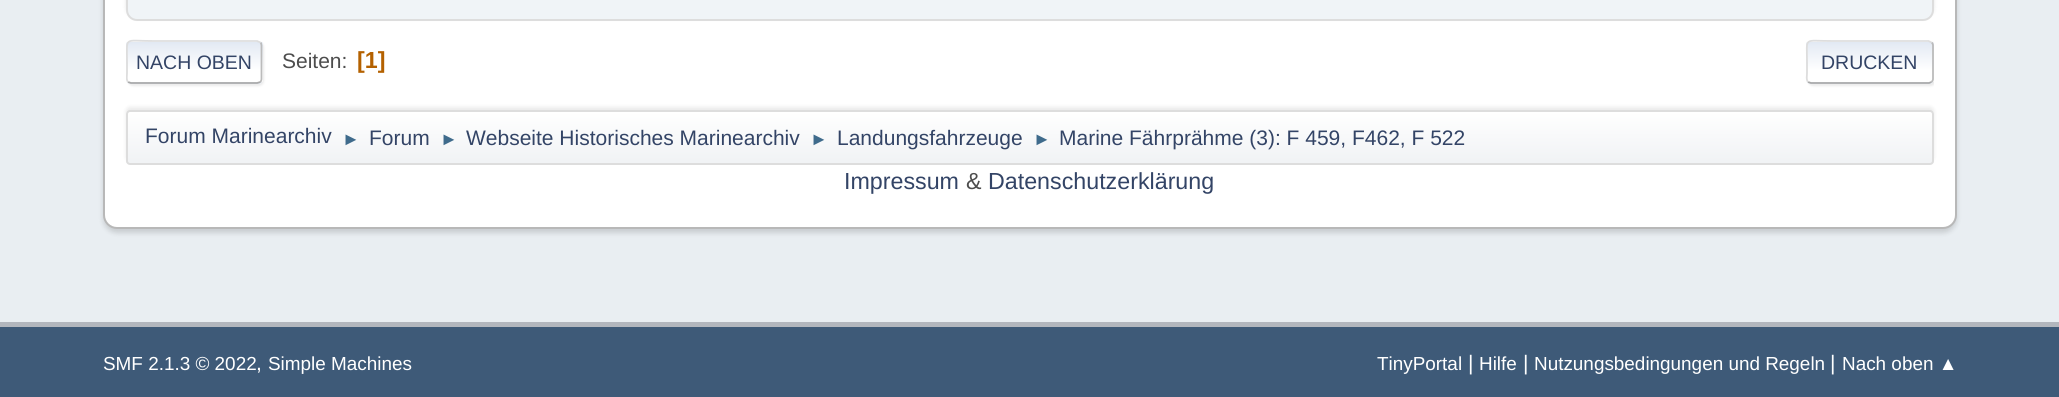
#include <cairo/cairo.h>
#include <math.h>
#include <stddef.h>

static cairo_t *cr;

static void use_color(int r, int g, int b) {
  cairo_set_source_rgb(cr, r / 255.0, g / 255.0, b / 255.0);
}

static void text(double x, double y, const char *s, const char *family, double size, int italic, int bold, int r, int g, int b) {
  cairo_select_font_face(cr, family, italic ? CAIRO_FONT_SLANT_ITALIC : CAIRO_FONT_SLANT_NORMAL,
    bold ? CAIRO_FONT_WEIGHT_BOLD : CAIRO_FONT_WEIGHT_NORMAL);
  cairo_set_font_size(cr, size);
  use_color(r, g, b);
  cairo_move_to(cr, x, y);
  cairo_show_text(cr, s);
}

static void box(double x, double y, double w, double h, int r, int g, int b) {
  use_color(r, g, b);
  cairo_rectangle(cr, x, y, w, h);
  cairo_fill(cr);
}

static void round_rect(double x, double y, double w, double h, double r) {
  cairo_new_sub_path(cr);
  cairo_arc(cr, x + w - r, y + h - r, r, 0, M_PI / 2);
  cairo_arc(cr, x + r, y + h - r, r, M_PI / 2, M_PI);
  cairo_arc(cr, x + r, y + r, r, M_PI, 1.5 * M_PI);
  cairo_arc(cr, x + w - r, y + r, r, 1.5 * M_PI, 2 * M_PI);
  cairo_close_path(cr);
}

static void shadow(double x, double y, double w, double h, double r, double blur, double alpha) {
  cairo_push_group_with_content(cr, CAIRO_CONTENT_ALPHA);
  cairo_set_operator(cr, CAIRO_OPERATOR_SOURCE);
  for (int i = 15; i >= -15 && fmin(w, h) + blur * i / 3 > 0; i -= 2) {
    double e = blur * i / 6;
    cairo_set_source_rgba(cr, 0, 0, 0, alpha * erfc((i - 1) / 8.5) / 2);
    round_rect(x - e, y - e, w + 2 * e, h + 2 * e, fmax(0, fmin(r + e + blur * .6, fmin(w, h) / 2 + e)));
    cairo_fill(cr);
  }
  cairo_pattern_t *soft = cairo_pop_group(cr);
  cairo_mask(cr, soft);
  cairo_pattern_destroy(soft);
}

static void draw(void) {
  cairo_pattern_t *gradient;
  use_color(233, 238, 242);
  cairo_paint(cr);
  use_color(0, 0, 0);
  shadow(103, -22, 1854, 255, 14, 2.5, 0.14);
  use_color(255, 255, 255);
  round_rect(104, -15, 1852, 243, 13);
  cairo_fill_preserve(cr);
  use_color(184, 184, 184);
  cairo_stroke(cr);
  use_color(0, 0, 0);
  shadow(126, -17, 1808, 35, 11, 2, 0.1);
  use_color(240, 244, 247);
  round_rect(127, -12, 1806, 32, 10);
  cairo_fill_preserve(cr);
  use_color(221, 221, 221);
  cairo_stroke(cr);
  use_color(221, 221, 221);
  shadow(128, 42, 136, 44, 5, 1, 0.57);
  use_color(255, 255, 255);
  round_rect(126, 40, 137, 44, 5);
  cairo_fill(cr);
  cairo_save(cr);
  round_rect(126, 40, 137, 44, 5);
  cairo_clip(cr);
  gradient = cairo_pattern_create_linear(194, 42, 194, 82);
  cairo_pattern_add_color_stop_rgba(gradient, 0, 0.886, 0.914, 0.953, 1);
  cairo_pattern_add_color_stop_rgba(gradient, 0.7, 1, 1, 1, 1);
  cairo_set_source(cr, gradient);
  cairo_pattern_destroy(gradient);
  cairo_rectangle(cr, 126, 42, 137, 40);
  cairo_fill(cr);
  gradient = cairo_pattern_create_linear(194, 82, 194, 123);
  cairo_pattern_add_color_stop_rgba(gradient, 0, 0.886, 0.914, 0.953, 1);
  cairo_pattern_add_color_stop_rgba(gradient, 0.7, 1, 1, 1, 1);
  cairo_set_source(cr, gradient);
  cairo_pattern_destroy(gradient);
  cairo_rectangle(cr, 126, 82, 137, 2);
  cairo_fill(cr);
  cairo_restore(cr);
  cairo_new_path(cr);
  cairo_move_to(cr, 260.5, 42.5);
  cairo_curve_to(cr, 261, 43, 261.5, 44.5, 261.5, 45.5);
  cairo_line_to(cr, 261.5, 79);
  cairo_curve_to(cr, 261.5, 80, 261, 81, 260.5, 82);
  use_color(187, 187, 187);
  cairo_set_line_width(cr, 1.8);
  cairo_stroke(cr);
  cairo_new_path(cr);
  cairo_move_to(cr, 260.5, 82);
  cairo_line_to(cr, 257, 83);
  cairo_line_to(cr, 131, 83);
  cairo_line_to(cr, 128, 82);
  use_color(170, 170, 170);
  cairo_stroke(cr);
  cairo_save(cr);
  cairo_rectangle(cr, 126, 28, 1808, 68);
  cairo_clip(cr);
  cairo_new_path(cr);
  cairo_move_to(cr, 128, 82);
  cairo_curve_to(cr, 126, 79.5, 127, 75.5, 127, 73);
  cairo_line_to(cr, 127, 62);
  cairo_curve_to(cr, 127, 36, 123.5, 41, 152, 41);
  cairo_line_to(cr, 257, 41);
  cairo_line_to(cr, 260.5, 42.5);
  use_color(221, 221, 221);
  cairo_stroke(cr);
  cairo_restore(cr);
  cairo_save(cr);
  cairo_rectangle(cr, 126, 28, 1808, 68);
  cairo_clip(cr);
  use_color(221, 221, 221);
  shadow(1808, 42, 128, 44, 5, 1, 0.57);
  cairo_restore(cr);
  use_color(255, 255, 255);
  round_rect(1806, 40, 128, 44, 5);
  cairo_fill(cr);
  cairo_save(cr);
  round_rect(1806, 40, 128, 44, 5);
  cairo_clip(cr);
  gradient = cairo_pattern_create_linear(1870, 42, 1870, 82);
  cairo_pattern_add_color_stop_rgba(gradient, 0, 0.886, 0.914, 0.953, 1);
  cairo_pattern_add_color_stop_rgba(gradient, 0.7, 1, 1, 1, 1);
  cairo_set_source(cr, gradient);
  cairo_pattern_destroy(gradient);
  cairo_rectangle(cr, 1806, 42, 128, 40);
  cairo_fill(cr);
  gradient = cairo_pattern_create_linear(1870, 82, 1870, 123);
  cairo_pattern_add_color_stop_rgba(gradient, 0, 0.886, 0.914, 0.953, 1);
  cairo_pattern_add_color_stop_rgba(gradient, 0.7, 1, 1, 1, 1);
  cairo_set_source(cr, gradient);
  cairo_pattern_destroy(gradient);
  cairo_rectangle(cr, 1806, 82, 128, 2);
  cairo_fill(cr);
  cairo_restore(cr);
  cairo_new_path(cr);
  cairo_move_to(cr, 1931.5, 42.5);
  cairo_curve_to(cr, 1932.5, 43, 1933, 44.5, 1933, 45.5);
  cairo_line_to(cr, 1933, 79);
  cairo_curve_to(cr, 1933, 80, 1932.5, 81, 1931.5, 82);
  use_color(187, 187, 187);
  cairo_stroke(cr);
  cairo_new_path(cr);
  cairo_move_to(cr, 1931.5, 82);
  cairo_line_to(cr, 1929, 83);
  cairo_line_to(cr, 1831, 83);
  cairo_line_to(cr, 1811, 83);
  cairo_line_to(cr, 1808, 82);
  use_color(170, 170, 170);
  cairo_stroke(cr);
  cairo_new_path(cr);
  cairo_move_to(cr, 1808, 82);
  cairo_curve_to(cr, 1806, 79.5, 1807, 75.5, 1807, 73);
  cairo_line_to(cr, 1807, 62);
  cairo_curve_to(cr, 1807, 36.5, 1803, 41, 1831, 41);
  cairo_line_to(cr, 1928.5, 41);
  cairo_line_to(cr, 1931.5, 42.5);
  use_color(221, 221, 221);
  cairo_stroke(cr);
  use_color(0, 0, 0);
  shadow(126, 107, 1808, 54, 4, 2, 0.08);
  cairo_save(cr);
  round_rect(126, 110, 1808, 55, 4);
  cairo_clip(cr);
  gradient = cairo_pattern_create_linear(1030, 112, 1030, 163);
  cairo_pattern_add_color_stop_rgba(gradient, 0, 1, 1, 1, 1);
  cairo_pattern_add_color_stop_rgba(gradient, 0.95, 0.945, 0.953, 0.961, 1);
  cairo_set_source(cr, gradient);
  cairo_pattern_destroy(gradient);
  cairo_rectangle(cr, 126, 112, 1808, 51);
  cairo_fill(cr);
  cairo_restore(cr);
  round_rect(127, 111, 1806, 53, 3);
  use_color(221, 221, 221);
  cairo_set_line_width(cr, 2);
  cairo_stroke(cr);
  box(0, 327, 2059, 70, 62, 90, 120);
  box(0, 322, 2059, 5, 178, 182, 189);
  text(136, 69, "NACH OBEN", "Liberation Sans", 19.5, 0, 0, 51, 68, 102);
  text(282, 68, "Seiten:", "Liberation Sans", 21, 0, 0, 77, 77, 77);
  text(357, 68, "[1]", "Liberation Sans", 23.25, 0, 1, 180, 97, 0);
  text(1821, 69, "DRUCKEN", "Liberation Sans", 19.5, 0, 0, 51, 68, 102);
  text(145, 143, "Forum Marinearchiv", "Liberation Sans", 21, 0, 0, 51, 68, 102);
  text(342, 145, "►", "Liberation Sans", 18, 0, 0, 63, 107, 140);
  text(369, 145, "Forum", "Liberation Sans", 21, 0, 0, 51, 68, 102);
  text(440, 145, "►", "Liberation Sans", 18, 0, 0, 63, 107, 140);
  text(466, 145, "Webseite Historisches Marinearchiv", "Liberation Sans", 21, 0, 0, 51, 68, 102);
  text(810, 145, "►", "Liberation Sans", 18, 0, 0, 63, 107, 140);
  text(837, 145, "Landungsfahrzeuge", "Liberation Sans", 21, 0, 0, 51, 68, 102);
  text(1033, 145, "►", "Liberation Sans", 18, 0, 0, 63, 107, 140);
  text(1059, 145, "Marine Fährprähme (3): F 459, F462, F 522", "Liberation Sans", 21, 0, 0, 51, 68, 102);
  text(844, 189, "Impressum", "Liberation Sans", 23.25, 0, 0, 51, 68, 102);
  text(966, 189, "&", "Liberation Sans", 23.25, 0, 0, 77, 77, 77);
  text(988, 189, "Datenschutzerklärung", "Liberation Sans", 23.25, 0, 0, 51, 68, 102);
  text(103, 370, "SMF 2.1.3 © 2022", "Liberation Sans", 18.9, 0, 0, 255, 255, 255);
  text(256, 370, ",", "Liberation Sans", 21, 0, 0, 255, 255, 255);
  text(268, 370, "Simple Machines", "Liberation Sans", 18.9, 0, 0, 255, 255, 255);
  text(1377, 370, "TinyPortal", "Liberation Sans", 18.9, 0, 0, 255, 255, 255);
  text(1468, 370, "|", "Liberation Sans", 21, 0, 0, 255, 255, 255);
  text(1479, 370, "Hilfe", "Liberation Sans", 18.9, 0, 0, 255, 255, 255);
  text(1523, 370, "|", "Liberation Sans", 21, 0, 0, 255, 255, 255);
  text(1534, 370, "Nutzungsbedingungen und Regeln", "Liberation Sans", 18.9, 0, 0, 255, 255, 255);
  text(1830, 370, "|", "Liberation Sans", 21, 0, 0, 255, 255, 255);
  text(1842, 370, "Nach oben ▲", "Liberation Sans", 18.9, 0, 0, 255, 255, 255);
}

int main(void) {
  cairo_surface_t *surface = cairo_image_surface_create(CAIRO_FORMAT_RGB24, 2059, 397);
  cr = cairo_create(surface);
  cairo_font_options_t *options = cairo_font_options_create();
  cairo_font_options_set_hint_metrics(options, CAIRO_HINT_METRICS_OFF);
  cairo_font_options_set_hint_style(options, CAIRO_HINT_STYLE_NONE);
  cairo_set_font_options(cr, options);
  cairo_set_miter_limit(cr, 4);
  draw();
  cairo_surface_write_to_png(surface, "out.png");
  cairo_font_options_destroy(options);
  cairo_destroy(cr);
  cairo_surface_destroy(surface);
  return 0;
}
